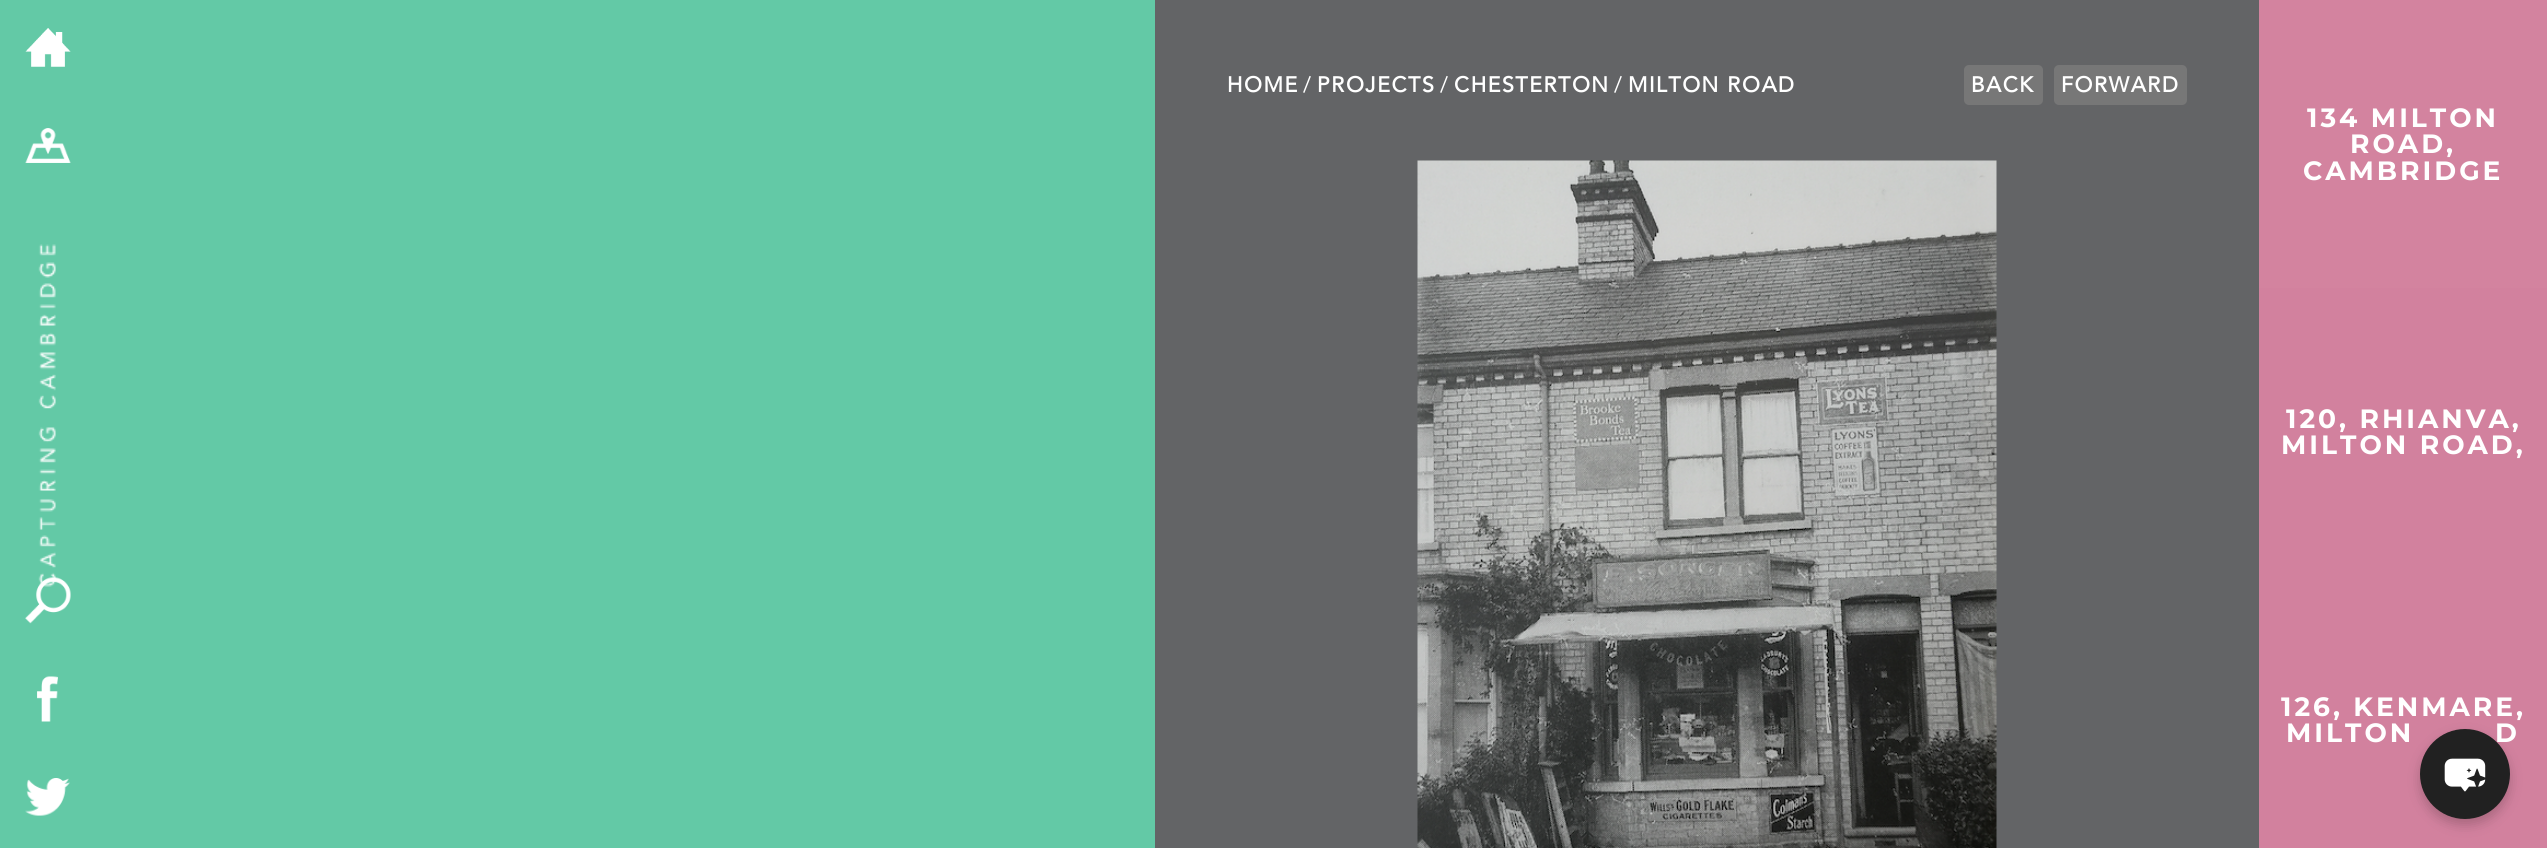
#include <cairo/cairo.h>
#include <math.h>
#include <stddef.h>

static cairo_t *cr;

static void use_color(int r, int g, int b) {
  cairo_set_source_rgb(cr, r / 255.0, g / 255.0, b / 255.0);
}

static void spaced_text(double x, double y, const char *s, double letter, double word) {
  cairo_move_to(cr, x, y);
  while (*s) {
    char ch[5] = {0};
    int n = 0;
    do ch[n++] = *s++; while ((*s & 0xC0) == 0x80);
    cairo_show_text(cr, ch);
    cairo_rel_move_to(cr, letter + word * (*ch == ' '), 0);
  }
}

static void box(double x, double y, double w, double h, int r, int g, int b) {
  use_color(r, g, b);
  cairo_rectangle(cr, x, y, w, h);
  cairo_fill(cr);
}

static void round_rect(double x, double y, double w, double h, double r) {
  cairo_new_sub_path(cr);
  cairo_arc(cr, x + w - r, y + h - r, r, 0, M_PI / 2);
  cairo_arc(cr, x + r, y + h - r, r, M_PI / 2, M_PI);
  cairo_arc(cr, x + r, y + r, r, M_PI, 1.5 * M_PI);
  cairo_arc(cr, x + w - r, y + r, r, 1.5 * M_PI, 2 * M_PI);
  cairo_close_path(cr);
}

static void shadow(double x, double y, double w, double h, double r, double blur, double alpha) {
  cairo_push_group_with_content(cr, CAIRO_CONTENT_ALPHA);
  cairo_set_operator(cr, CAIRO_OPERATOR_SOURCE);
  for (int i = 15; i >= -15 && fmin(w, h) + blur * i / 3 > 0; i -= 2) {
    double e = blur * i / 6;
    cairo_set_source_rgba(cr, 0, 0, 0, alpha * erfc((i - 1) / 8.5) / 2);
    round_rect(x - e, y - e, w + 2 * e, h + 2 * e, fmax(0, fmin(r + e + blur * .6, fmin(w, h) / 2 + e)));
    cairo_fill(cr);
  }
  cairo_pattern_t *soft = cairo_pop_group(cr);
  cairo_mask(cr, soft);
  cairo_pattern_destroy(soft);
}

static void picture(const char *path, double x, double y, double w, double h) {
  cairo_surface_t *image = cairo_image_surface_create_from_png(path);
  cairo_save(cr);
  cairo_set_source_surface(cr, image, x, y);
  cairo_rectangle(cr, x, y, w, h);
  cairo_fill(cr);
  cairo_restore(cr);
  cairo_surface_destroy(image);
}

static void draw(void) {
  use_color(99, 201, 166);
  cairo_paint(cr);
  picture("img_01.png", 25, 28, 46, 39);
  picture("img_02.png", 25, 128, 46, 35);
  picture("img_03.png", 38, 244, 18, 343);
  picture("img_04.png", 25, 577, 46, 47);
  picture("img_05.png", 37, 676, 21, 46);
  picture("img_06.png", 25, 778, 45, 38);
  box(1155, 0, 1104, 848, 99, 100, 102);
  use_color(119, 119, 119);
  round_rect(1964, 65, 79, 40, 5);
  cairo_fill(cr);
  round_rect(2054, 65, 133, 40, 5);
  cairo_fill(cr);
  picture("img_07.png", 1417, 160, 580, 688);
  box(2259, 0, 288, 288, 211, 131, 159);
  box(2259, 288, 288, 560, 210, 129, 158);
  use_color(0, 0, 0);
  shadow(2420, 735, 90, 90, 45, 6, 0.2);
  cairo_select_font_face(cr, "Avenir", CAIRO_FONT_SLANT_NORMAL, CAIRO_FONT_WEIGHT_BOLD);
  cairo_set_font_size(cr, 21.5);
  use_color(255, 255, 255);
  spaced_text(1227, 92, "HOME", 1.5, 0);
  cairo_select_font_face(cr, "Avenir", CAIRO_FONT_SLANT_NORMAL, CAIRO_FONT_WEIGHT_NORMAL);
  spaced_text(1303, 92, "/", 1.5, 0);
  cairo_select_font_face(cr, "Avenir", CAIRO_FONT_SLANT_NORMAL, CAIRO_FONT_WEIGHT_BOLD);
  spaced_text(1317, 92, "PROJECTS", 1.5, 0);
  cairo_select_font_face(cr, "Avenir", CAIRO_FONT_SLANT_NORMAL, CAIRO_FONT_WEIGHT_NORMAL);
  spaced_text(1440, 92, "/", 1.5, 0);
  cairo_select_font_face(cr, "Avenir", CAIRO_FONT_SLANT_NORMAL, CAIRO_FONT_WEIGHT_BOLD);
  spaced_text(1454, 92, "CHESTERTON", 1.5, 0);
  cairo_select_font_face(cr, "Avenir", CAIRO_FONT_SLANT_NORMAL, CAIRO_FONT_WEIGHT_NORMAL);
  spaced_text(1614, 92, "/", 1.5, 0);
  cairo_select_font_face(cr, "Avenir", CAIRO_FONT_SLANT_NORMAL, CAIRO_FONT_WEIGHT_BOLD);
  spaced_text(1628, 92, "MILTON ROAD", 1.5, 0);
  spaced_text(1971, 92, "BACK", 1.5, 0);
  spaced_text(2061, 92, "FORWARD", 1.5, 0);
  cairo_select_font_face(cr, "Montserrat", CAIRO_FONT_SLANT_NORMAL, CAIRO_FONT_WEIGHT_BOLD);
  cairo_set_font_size(cr, 26.5);
  spaced_text(2307, 127, "134 MILTON", 3, 0);
  spaced_text(2350, 153, "ROAD,", 3, 0);
  spaced_text(2303, 180, "CAMBRIDGE", 3, 0);
  spaced_text(2286, 428, "120, RHIANVA,", 3, 0);
  spaced_text(2281, 454, "MILTON ROAD,", 3, 0);
  spaced_text(2281, 716, "126, KENMARE,", 3, 0);
  spaced_text(2286, 742, "MILTON", 3, 0);
  spaced_text(2495, 742, "D", 3, 0);
  use_color(33, 33, 33);
  cairo_new_path(cr);
  cairo_arc(cr, 2465, 774, 45, 0, 2 * M_PI);
  cairo_fill(cr);
  picture("img_08.png", 2444, 758, 42, 34);
}

int main(void) {
  cairo_surface_t *surface = cairo_image_surface_create(CAIRO_FORMAT_RGB24, 2547, 848);
  cr = cairo_create(surface);
  cairo_font_options_t *options = cairo_font_options_create();
  cairo_font_options_set_hint_metrics(options, CAIRO_HINT_METRICS_OFF);
  cairo_font_options_set_hint_style(options, CAIRO_HINT_STYLE_NONE);
  cairo_set_font_options(cr, options);
  cairo_set_miter_limit(cr, 4);
  draw();
  cairo_surface_write_to_png(surface, "out.png");
  cairo_font_options_destroy(options);
  cairo_destroy(cr);
  cairo_surface_destroy(surface);
  return 0;
}
